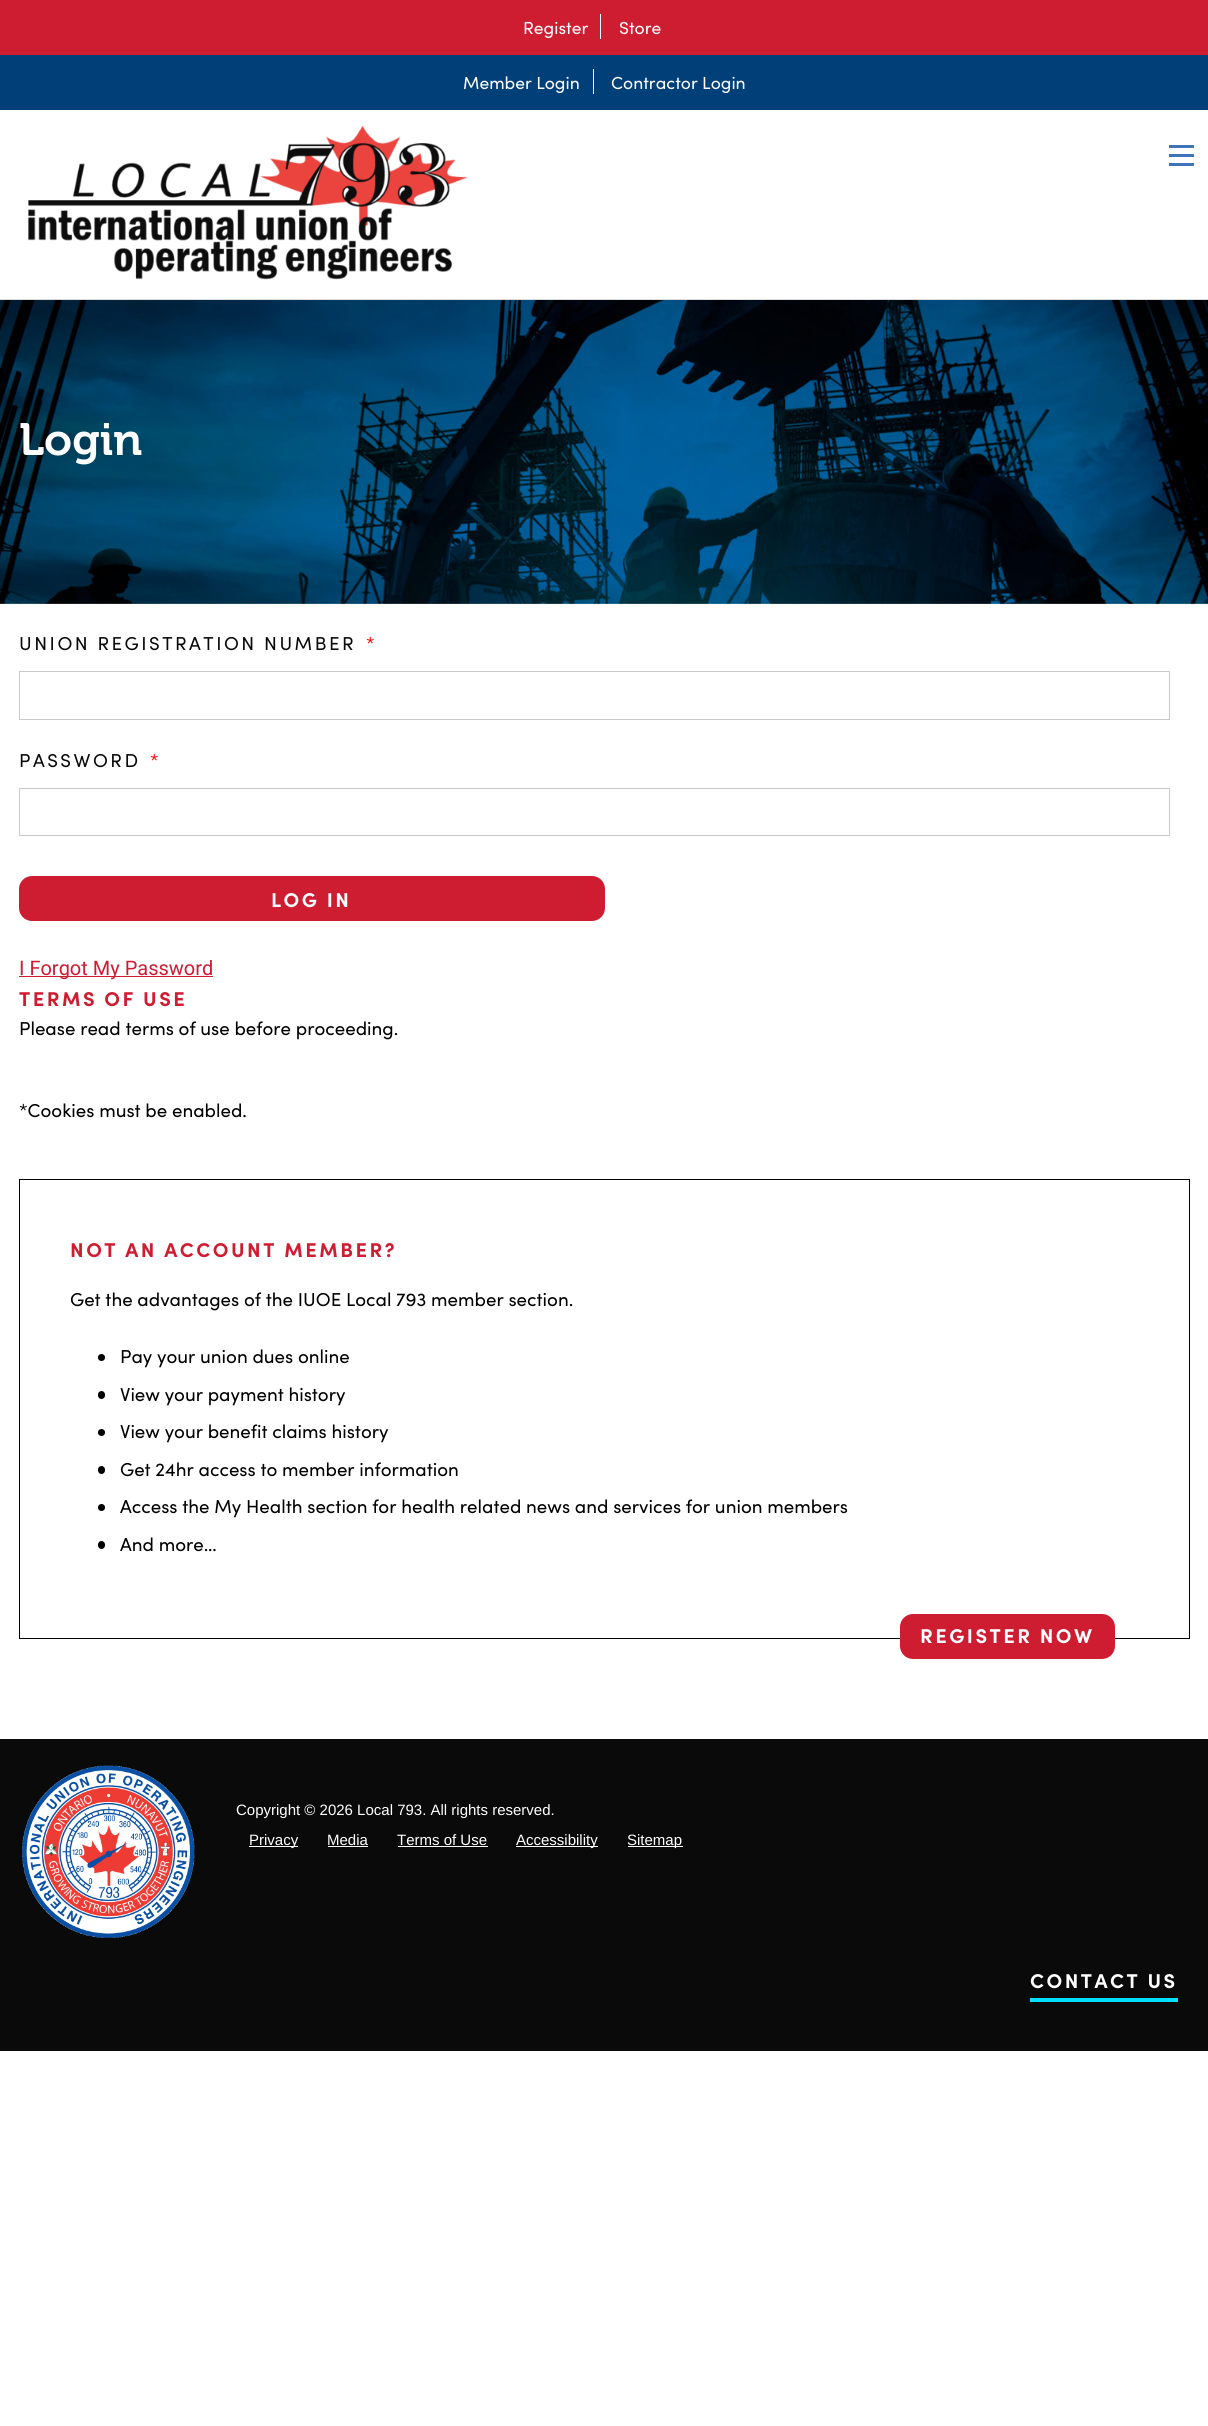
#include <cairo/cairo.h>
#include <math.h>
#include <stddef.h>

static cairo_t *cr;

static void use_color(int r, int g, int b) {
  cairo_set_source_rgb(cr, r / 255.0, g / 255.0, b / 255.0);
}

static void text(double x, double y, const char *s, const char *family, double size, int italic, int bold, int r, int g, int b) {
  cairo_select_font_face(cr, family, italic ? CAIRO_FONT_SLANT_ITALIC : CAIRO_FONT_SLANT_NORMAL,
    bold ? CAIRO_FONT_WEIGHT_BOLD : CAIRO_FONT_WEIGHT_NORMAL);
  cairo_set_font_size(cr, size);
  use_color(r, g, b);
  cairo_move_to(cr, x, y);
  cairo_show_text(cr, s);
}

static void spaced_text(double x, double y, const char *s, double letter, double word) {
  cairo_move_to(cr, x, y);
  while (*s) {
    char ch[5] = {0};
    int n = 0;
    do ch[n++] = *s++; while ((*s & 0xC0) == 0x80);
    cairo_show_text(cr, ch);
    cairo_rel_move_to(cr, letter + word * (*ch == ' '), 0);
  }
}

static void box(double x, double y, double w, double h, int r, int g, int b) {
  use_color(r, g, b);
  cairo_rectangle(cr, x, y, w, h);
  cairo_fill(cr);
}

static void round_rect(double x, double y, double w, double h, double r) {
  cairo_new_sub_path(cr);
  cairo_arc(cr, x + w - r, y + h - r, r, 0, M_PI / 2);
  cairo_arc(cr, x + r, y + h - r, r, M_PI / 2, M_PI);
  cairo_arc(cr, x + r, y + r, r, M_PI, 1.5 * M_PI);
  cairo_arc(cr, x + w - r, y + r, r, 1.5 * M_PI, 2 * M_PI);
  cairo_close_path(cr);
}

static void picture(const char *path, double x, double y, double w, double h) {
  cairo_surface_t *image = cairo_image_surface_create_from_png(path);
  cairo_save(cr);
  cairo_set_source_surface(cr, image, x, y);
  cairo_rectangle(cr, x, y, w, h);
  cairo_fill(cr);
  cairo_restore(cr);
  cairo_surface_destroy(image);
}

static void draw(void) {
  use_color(255, 255, 255);
  cairo_paint(cr);
  box(0, 0, 1208, 55, 206, 28, 49);
  box(600, 14, 1, 25, 255, 255, 255);
  box(0, 55, 1208, 55, 0, 63, 119);
  box(593, 69, 1, 25, 255, 255, 255);
  box(0, 299, 1208, 1, 220, 220, 220);
  picture("img_01.png", 28, 125, 440, 155);
  box(1169, 163, 25, 3, 63, 116, 189);
  box(1169, 154, 25, 3, 63, 116, 189);
  box(1169, 145, 25, 3, 63, 116, 189);
  picture("img_02.png", 0, 300, 1208, 304);
  cairo_rectangle(cr, 19.5, 671.5, 1150, 48);
  use_color(202, 202, 202);
  cairo_set_line_width(cr, 1);
  cairo_stroke(cr);
  cairo_rectangle(cr, 19.5, 788.5, 1150, 47);
  cairo_stroke(cr);
  use_color(206, 28, 49);
  round_rect(19, 876, 586, 45, 13);
  cairo_fill(cr);
  box(19, 976, 194, 1, 206, 28, 49);
  cairo_rectangle(cr, 19.5, 1179.5, 1170, 459);
  use_color(0, 0, 0);
  cairo_stroke(cr);
  cairo_arc(cr, 101.5, 1357.5, 3.5, 0, 2 * M_PI);
  cairo_fill(cr);
  round_rect(98, 1391, 7, 8, 3.5);
  cairo_fill(cr);
  cairo_arc(cr, 101.5, 1432.5, 3.5, 0, 2 * M_PI);
  cairo_fill(cr);
  round_rect(98, 1466, 7, 8, 3.5);
  cairo_fill(cr);
  cairo_arc(cr, 101.5, 1507.5, 3.5, 0, 2 * M_PI);
  cairo_fill(cr);
  round_rect(98, 1541, 7, 8, 3.5);
  cairo_fill(cr);
  use_color(206, 28, 49);
  round_rect(900, 1614, 215, 45, 13);
  cairo_fill(cr);
  box(0, 1739, 1208, 312, 10, 10, 10);
  picture("img_03.png", 22, 1765, 173, 173);
  box(249, 1846, 49, 1, 255, 255, 255);
  box(328, 1846, 40, 1, 255, 255, 255);
  box(398, 1846, 90, 1, 255, 255, 255);
  box(516, 1846, 82, 1, 255, 255, 255);
  box(628, 1846, 55, 1, 255, 255, 255);
  box(1030, 1998, 148, 4, 0, 222, 255);
  text(523, 34, "Register", "Sofia", 17.5, 0, 0, 255, 255, 255);
  text(619, 34, "Store", "Sofia", 17.5, 0, 0, 255, 255, 255);
  text(463, 89, "Member Login", "Sofia", 17.5, 0, 0, 255, 255, 255);
  text(611, 89, "Contractor Login", "Sofia", 17.5, 0, 0, 255, 255, 255);
  text(19, 455, "Login", "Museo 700 SemiBold", 45, 0, 0, 255, 255, 255);
  cairo_select_font_face(cr, "Sofia", CAIRO_FONT_SLANT_NORMAL, CAIRO_FONT_WEIGHT_NORMAL);
  cairo_set_font_size(cr, 18.75);
  use_color(10, 10, 10);
  spaced_text(19, 650, "UNION REGISTRATION NUMBER", 2.5, 0);
  use_color(255, 0, 0);
  spaced_text(366, 650, "*", 2.5, 0);
  use_color(10, 10, 10);
  spaced_text(19, 767, "PASSWORD", 2.5, 0);
  use_color(255, 0, 0);
  spaced_text(150, 767, "*", 2.5, 0);
  cairo_select_font_face(cr, "Sofia", CAIRO_FONT_SLANT_NORMAL, CAIRO_FONT_WEIGHT_BOLD);
  cairo_set_font_size(cr, 20);
  use_color(255, 255, 255);
  spaced_text(271, 907, "LOG IN", 2.5, 0);
  text(19, 975, "I Forgot My Password", "Roboto", 20, 0, 0, 206, 28, 49);
  cairo_select_font_face(cr, "Sofia", CAIRO_FONT_SLANT_NORMAL, CAIRO_FONT_WEIGHT_BOLD);
  spaced_text(19, 1006, "TERMS OF USE", 2.5, 0);
  text(19, 1035, "Please read terms of use before proceeding.", "Sofia", 18.75, 0, 0, 0, 0, 0);
  text(19, 1117, "*Cookies must be enabled.", "Sofia", 18.75, 0, 0, 0, 0, 0);
  cairo_select_font_face(cr, "Sofia", CAIRO_FONT_SLANT_NORMAL, CAIRO_FONT_WEIGHT_BOLD);
  cairo_set_font_size(cr, 20);
  use_color(206, 28, 49);
  spaced_text(70, 1257, "NOT AN ACCOUNT MEMBER?", 2.5, 0);
  text(70, 1306, "Get the advantages of the IUOE Local 793 member section.", "Sofia", 18.75, 0, 0, 0, 0, 0);
  text(120, 1363, "Pay your union dues online", "Sofia", 18.75, 0, 0, 0, 0, 0);
  text(120, 1401, "View your payment history", "Sofia", 18.75, 0, 0, 0, 0, 0);
  text(120, 1438, "View your benefit claims history", "Sofia", 18.75, 0, 0, 0, 0, 0);
  text(120, 1476, "Get 24hr access to member information", "Sofia", 18.75, 0, 0, 0, 0, 0);
  text(120, 1513, "Access the My Health section for health related news and services for union members", "Sofia", 18.75, 0, 0, 0, 0, 0);
  text(120, 1551, "And more…", "Sofia", 18.75, 0, 0, 0, 0, 0);
  cairo_select_font_face(cr, "Sofia", CAIRO_FONT_SLANT_NORMAL, CAIRO_FONT_WEIGHT_BOLD);
  cairo_set_font_size(cr, 20);
  use_color(255, 255, 255);
  spaced_text(920, 1643, "REGISTER NOW", 2.5, 0);
  text(236, 1815, "Copyright © 2026 Local 793. All rights reserved.", "Liberation Sans", 15, 0, 0, 255, 255, 255);
  text(249, 1845, "Privacy", "Liberation Sans", 15, 0, 0, 255, 255, 255);
  text(327, 1845, "Media", "Liberation Sans", 15, 0, 0, 255, 255, 255);
  text(397, 1845, "Terms of Use", "Liberation Sans", 15, 0, 0, 255, 255, 255);
  text(516, 1845, "Accessibility", "Liberation Sans", 15, 0, 0, 255, 255, 255);
  text(627, 1845, "Sitemap", "Liberation Sans", 15, 0, 0, 255, 255, 255);
  cairo_select_font_face(cr, "Sofia", CAIRO_FONT_SLANT_NORMAL, CAIRO_FONT_WEIGHT_BOLD);
  cairo_set_font_size(cr, 20);
  spaced_text(1030, 1988, "CONTACT US", 2.5, 0);
}

int main(void) {
  cairo_surface_t *surface = cairo_image_surface_create(CAIRO_FORMAT_RGB24, 1208, 2426);
  cr = cairo_create(surface);
  cairo_font_options_t *options = cairo_font_options_create();
  cairo_font_options_set_hint_metrics(options, CAIRO_HINT_METRICS_OFF);
  cairo_font_options_set_hint_style(options, CAIRO_HINT_STYLE_NONE);
  cairo_set_font_options(cr, options);
  cairo_set_miter_limit(cr, 4);
  draw();
  cairo_surface_write_to_png(surface, "out.png");
  cairo_font_options_destroy(options);
  cairo_destroy(cr);
  cairo_surface_destroy(surface);
  return 0;
}
